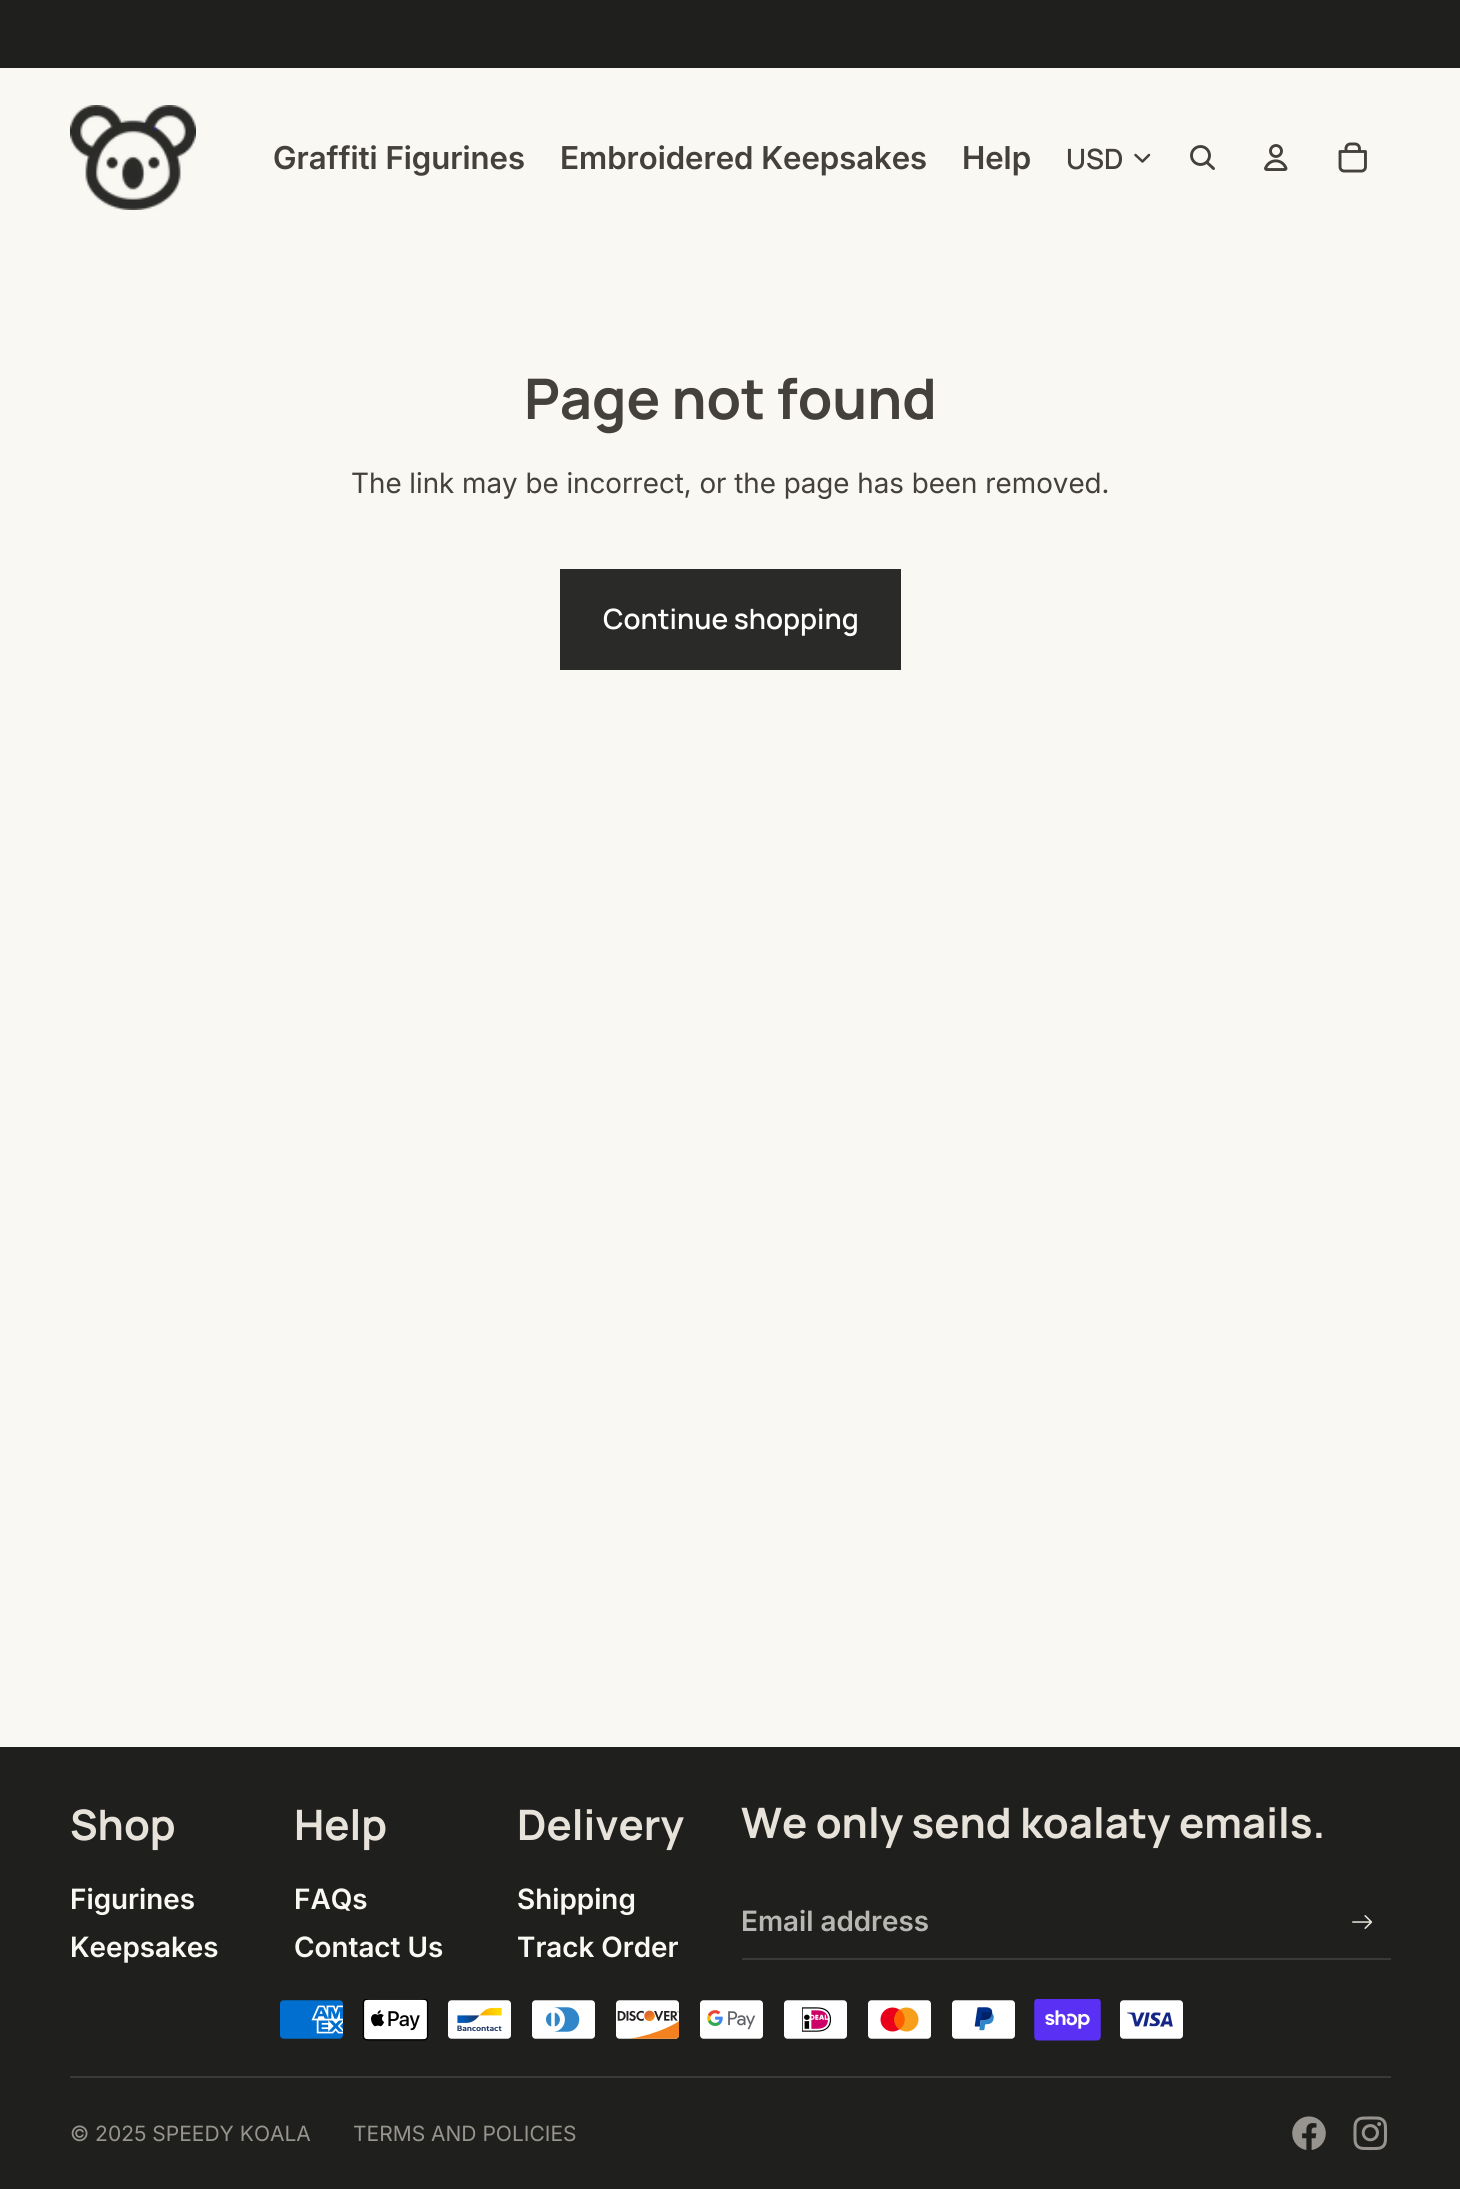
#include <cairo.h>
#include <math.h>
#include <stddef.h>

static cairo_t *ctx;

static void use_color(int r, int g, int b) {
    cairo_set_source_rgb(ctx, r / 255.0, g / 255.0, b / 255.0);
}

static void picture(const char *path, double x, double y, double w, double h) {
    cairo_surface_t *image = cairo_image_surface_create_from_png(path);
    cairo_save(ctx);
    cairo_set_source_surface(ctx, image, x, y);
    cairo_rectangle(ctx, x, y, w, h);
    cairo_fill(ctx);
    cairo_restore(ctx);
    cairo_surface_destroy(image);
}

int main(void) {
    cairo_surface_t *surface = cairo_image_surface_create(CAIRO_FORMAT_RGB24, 1460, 2189);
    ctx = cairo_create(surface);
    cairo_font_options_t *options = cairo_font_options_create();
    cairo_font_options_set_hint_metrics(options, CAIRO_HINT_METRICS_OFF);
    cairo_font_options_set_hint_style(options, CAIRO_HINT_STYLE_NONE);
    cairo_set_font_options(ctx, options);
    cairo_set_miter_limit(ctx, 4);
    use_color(31, 31, 29);
    cairo_paint(ctx);
    use_color(250, 248, 243);
    cairo_rectangle(ctx, 0, 68, 1460, 1679);
    cairo_fill(ctx);
    picture("img1.png", 70, 105, 126, 105);
    cairo_select_font_face(ctx, "Inter SemiBold", CAIRO_FONT_SLANT_NORMAL, CAIRO_FONT_WEIGHT_NORMAL);
    cairo_set_font_size(ctx, 31.5);
    use_color(68, 64, 60);
    cairo_move_to(ctx, 273, 169);
    cairo_show_text(ctx, "Graffiti Figurines");
    cairo_move_to(ctx, 560, 169);
    cairo_show_text(ctx, "Embroidered Keepsakes");
    cairo_move_to(ctx, 962, 169);
    cairo_show_text(ctx, "Help");
    cairo_select_font_face(ctx, "Manrope SemiBold", CAIRO_FONT_SLANT_NORMAL, CAIRO_FONT_WEIGHT_NORMAL);
    cairo_set_font_size(ctx, 28);
    cairo_move_to(ctx, 1066, 169);
    cairo_show_text(ctx, "USD");
    cairo_new_path(ctx);
    cairo_move_to(ctx, 1149, 155);
    cairo_line_to(ctx, 1142.5, 161.5);
    cairo_line_to(ctx, 1135.5, 155);
    cairo_set_line_width(ctx, 2.5);
    cairo_set_line_cap(ctx, CAIRO_LINE_CAP_ROUND);
    cairo_set_line_join(ctx, CAIRO_LINE_JOIN_ROUND);
    cairo_stroke(ctx);
    cairo_arc(ctx, 1200.5, 155.5, 9, 0, 2 * M_PI);
    cairo_set_line_width(ctx, 2.9);
    cairo_set_line_cap(ctx, CAIRO_LINE_CAP_BUTT);
    cairo_set_line_join(ctx, CAIRO_LINE_JOIN_MITER);
    cairo_stroke(ctx);
    cairo_new_path(ctx);
    cairo_move_to(ctx, 1207, 162.5);
    cairo_line_to(ctx, 1213.5, 168.5);
    cairo_set_line_cap(ctx, CAIRO_LINE_CAP_ROUND);
    cairo_set_line_join(ctx, CAIRO_LINE_JOIN_ROUND);
    cairo_stroke(ctx);
    picture("img2.png", 1264, 144, 24, 27);
    picture("img3.png", 1338, 142, 29, 31);
    cairo_select_font_face(ctx, "Manrope", CAIRO_FONT_SLANT_NORMAL, CAIRO_FONT_WEIGHT_BOLD);
    cairo_set_font_size(ctx, 56);
    cairo_move_to(ctx, 524, 419);
    cairo_show_text(ctx, "Page not found");
    cairo_select_font_face(ctx, "Inter", CAIRO_FONT_SLANT_NORMAL, CAIRO_FONT_WEIGHT_NORMAL);
    cairo_set_font_size(ctx, 28);
    cairo_move_to(ctx, 351, 493);
    cairo_show_text(ctx, "The link may be incorrect, or the page has been removed.");
    use_color(42, 42, 40);
    cairo_rectangle(ctx, 560, 569, 341, 101);
    cairo_fill(ctx);
    cairo_select_font_face(ctx, "Manrope SemiBold", CAIRO_FONT_SLANT_NORMAL, CAIRO_FONT_WEIGHT_NORMAL);
    use_color(255, 255, 255);
    cairo_move_to(ctx, 603, 629);
    cairo_show_text(ctx, "Continue shopping");
    cairo_select_font_face(ctx, "Manrope", CAIRO_FONT_SLANT_NORMAL, CAIRO_FONT_WEIGHT_BOLD);
    cairo_set_font_size(ctx, 42);
    use_color(231, 226, 218);
    cairo_move_to(ctx, 70, 1840);
    cairo_show_text(ctx, "Shop");
    cairo_select_font_face(ctx, "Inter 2 SemiBold", CAIRO_FONT_SLANT_NORMAL, CAIRO_FONT_WEIGHT_NORMAL);
    cairo_set_font_size(ctx, 28);
    use_color(250, 248, 243);
    cairo_move_to(ctx, 70, 1909);
    cairo_show_text(ctx, "Figurines");
    cairo_move_to(ctx, 70, 1957);
    cairo_show_text(ctx, "Keepsakes");
    cairo_select_font_face(ctx, "Manrope", CAIRO_FONT_SLANT_NORMAL, CAIRO_FONT_WEIGHT_BOLD);
    cairo_set_font_size(ctx, 42);
    use_color(231, 226, 218);
    cairo_move_to(ctx, 294, 1840);
    cairo_show_text(ctx, "Help");
    cairo_select_font_face(ctx, "Inter 2 SemiBold", CAIRO_FONT_SLANT_NORMAL, CAIRO_FONT_WEIGHT_NORMAL);
    cairo_set_font_size(ctx, 28);
    use_color(250, 248, 243);
    cairo_move_to(ctx, 294, 1909);
    cairo_show_text(ctx, "FAQs");
    cairo_move_to(ctx, 294, 1957);
    cairo_show_text(ctx, "Contact Us");
    cairo_select_font_face(ctx, "Manrope", CAIRO_FONT_SLANT_NORMAL, CAIRO_FONT_WEIGHT_BOLD);
    cairo_set_font_size(ctx, 42);
    use_color(231, 226, 218);
    cairo_move_to(ctx, 517, 1840);
    cairo_show_text(ctx, "Delivery");
    cairo_select_font_face(ctx, "Inter 2 SemiBold", CAIRO_FONT_SLANT_NORMAL, CAIRO_FONT_WEIGHT_NORMAL);
    cairo_set_font_size(ctx, 28);
    use_color(250, 248, 243);
    cairo_move_to(ctx, 517, 1909);
    cairo_show_text(ctx, "Shipping");
    cairo_move_to(ctx, 517, 1957);
    cairo_show_text(ctx, "Track Order");
    cairo_select_font_face(ctx, "Manrope", CAIRO_FONT_SLANT_NORMAL, CAIRO_FONT_WEIGHT_BOLD);
    cairo_set_font_size(ctx, 42);
    use_color(231, 226, 218);
    cairo_move_to(ctx, 741, 1838);
    cairo_show_text(ctx, "We only send koalaty emails.");
    use_color(58, 58, 54);
    cairo_rectangle(ctx, 742, 1958, 649, 2);
    cairo_fill(ctx);
    cairo_select_font_face(ctx, "Inter 2 SemiBold", CAIRO_FONT_SLANT_NORMAL, CAIRO_FONT_WEIGHT_NORMAL);
    cairo_set_font_size(ctx, 28);
    use_color(184, 183, 179);
    cairo_move_to(ctx, 741, 1931);
    cairo_show_text(ctx, "Email address");
    picture("img4.png", 1352, 1915, 21, 14);
    picture("img5.png", 280, 2000, 63, 39);
    picture("img6.png", 362, 1999, 67, 42);
    picture("img7.png", 448, 2000, 63, 39);
    picture("img8.png", 532, 2000, 63, 39);
    picture("img9.png", 616, 2000, 64, 39);
    picture("img10.png", 700, 2000, 63, 39);
    picture("img11.png", 784, 2000, 63, 39);
    picture("img12.png", 868, 2000, 63, 39);
    picture("img13.png", 952, 2000, 63, 39);
    picture("img14.png", 1034, 1999, 67, 42);
    picture("img15.png", 1120, 2000, 63, 39);
    use_color(58, 58, 54);
    cairo_rectangle(ctx, 70, 2076, 1321, 2);
    cairo_fill(ctx);
    cairo_select_font_face(ctx, "Inter 2", CAIRO_FONT_SLANT_NORMAL, CAIRO_FONT_WEIGHT_NORMAL);
    cairo_set_font_size(ctx, 21);
    use_color(151, 148, 142);
    cairo_move_to(ctx, 70, 2141);
    cairo_show_text(ctx, "© 2025 SPEEDY KOALA");
    cairo_move_to(ctx, 353, 2141);
    cairo_show_text(ctx, "TERMS AND POLICIES");
    picture("img16.png", 1292, 2116, 34, 34);
    picture("img17.png", 1353, 2116, 35, 35);
    cairo_surface_write_to_png(surface, "result.png");
    cairo_font_options_destroy(options);
    cairo_destroy(ctx);
    cairo_surface_destroy(surface);
    return 0;
}
